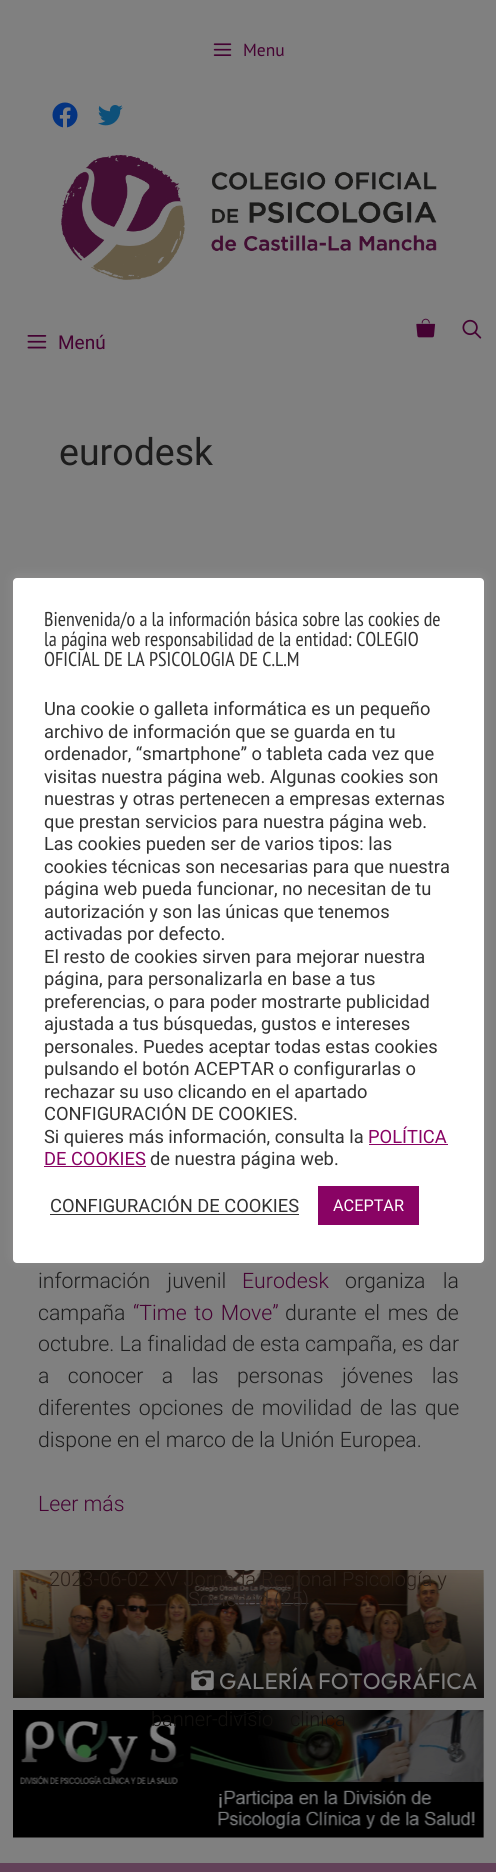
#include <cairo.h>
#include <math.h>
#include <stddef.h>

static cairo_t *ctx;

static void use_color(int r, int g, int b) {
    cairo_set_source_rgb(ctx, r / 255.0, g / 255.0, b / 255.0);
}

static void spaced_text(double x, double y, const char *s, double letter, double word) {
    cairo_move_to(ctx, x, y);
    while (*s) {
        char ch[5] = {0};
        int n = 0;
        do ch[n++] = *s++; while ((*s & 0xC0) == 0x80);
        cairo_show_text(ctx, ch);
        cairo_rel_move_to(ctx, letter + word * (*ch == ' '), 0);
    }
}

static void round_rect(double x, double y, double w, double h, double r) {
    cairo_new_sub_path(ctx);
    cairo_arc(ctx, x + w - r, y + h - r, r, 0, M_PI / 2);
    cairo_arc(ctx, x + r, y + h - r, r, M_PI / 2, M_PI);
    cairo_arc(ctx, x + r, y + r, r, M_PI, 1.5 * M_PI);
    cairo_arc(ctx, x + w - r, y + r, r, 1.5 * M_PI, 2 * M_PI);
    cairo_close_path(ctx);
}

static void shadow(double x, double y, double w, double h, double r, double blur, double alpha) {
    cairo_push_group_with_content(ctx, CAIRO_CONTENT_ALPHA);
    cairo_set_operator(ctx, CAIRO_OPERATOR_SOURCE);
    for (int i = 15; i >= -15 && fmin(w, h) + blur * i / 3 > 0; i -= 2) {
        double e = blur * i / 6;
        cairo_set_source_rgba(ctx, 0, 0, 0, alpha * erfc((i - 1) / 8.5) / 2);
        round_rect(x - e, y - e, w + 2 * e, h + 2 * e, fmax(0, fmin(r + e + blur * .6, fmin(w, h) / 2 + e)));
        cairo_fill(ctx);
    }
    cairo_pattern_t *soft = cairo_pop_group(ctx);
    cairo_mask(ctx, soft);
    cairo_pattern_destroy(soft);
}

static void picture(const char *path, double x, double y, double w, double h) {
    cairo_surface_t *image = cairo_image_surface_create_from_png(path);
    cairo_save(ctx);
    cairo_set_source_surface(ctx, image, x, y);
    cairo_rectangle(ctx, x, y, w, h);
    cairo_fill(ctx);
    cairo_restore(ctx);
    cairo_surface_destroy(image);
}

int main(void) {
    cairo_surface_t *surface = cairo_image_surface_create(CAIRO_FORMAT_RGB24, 496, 1872);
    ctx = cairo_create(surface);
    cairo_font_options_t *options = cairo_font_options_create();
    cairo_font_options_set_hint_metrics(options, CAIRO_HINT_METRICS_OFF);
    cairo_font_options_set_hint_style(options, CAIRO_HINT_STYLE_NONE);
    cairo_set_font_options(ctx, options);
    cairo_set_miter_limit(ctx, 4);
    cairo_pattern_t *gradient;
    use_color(128, 128, 128);
    cairo_paint(ctx);
    picture("img1.png", 213, 43, 19, 13);
    cairo_select_font_face(ctx, "PT Sans", CAIRO_FONT_SLANT_NORMAL, CAIRO_FONT_WEIGHT_NORMAL);
    cairo_set_font_size(ctx, 17.5);
    use_color(69, 2, 50);
    cairo_move_to(ctx, 243, 56);
    cairo_show_text(ctx, "Menu");
    picture("img2.png", 52, 102, 26, 26);
    picture("img3.png", 98, 105, 25, 21);
    picture("img4.png", 61, 155, 376, 125);
    picture("img5.png", 416, 318, 20, 20);
    picture("img6.png", 462, 319, 20, 20);
    picture("img7.png", 27, 335, 20, 14);
    cairo_select_font_face(ctx, "Roboto", CAIRO_FONT_SLANT_NORMAL, CAIRO_FONT_WEIGHT_NORMAL);
    cairo_set_font_size(ctx, 19);
    cairo_move_to(ctx, 58, 349);
    cairo_show_text(ctx, "Menú");
    cairo_set_font_size(ctx, 37.5);
    use_color(29, 29, 29);
    cairo_move_to(ctx, 59, 465);
    cairo_show_text(ctx, "eurodesk");
    cairo_select_font_face(ctx, "Roboto Light", CAIRO_FONT_SLANT_NORMAL, CAIRO_FONT_WEIGHT_NORMAL);
    cairo_set_font_size(ctx, 21.25);
    spaced_text(38, 1288, "información juvenil", 0, 12);
    use_color(69, 2, 50);
    cairo_move_to(ctx, 242, 1288);
    cairo_show_text(ctx, "Eurodesk");
    use_color(29, 29, 29);
    spaced_text(345, 1288, "organiza la", 0, 12);
    cairo_move_to(ctx, 38, 1320);
    cairo_show_text(ctx, "campaña");
    use_color(69, 2, 50);
    spaced_text(133, 1320, "“Time to Move”", 0, 2.5);
    use_color(29, 29, 29);
    spaced_text(285, 1320, "durante el mes de", 0, 2.5);
    cairo_move_to(ctx, 38, 1351);
    cairo_show_text(ctx, "octubre. La finalidad de esta campaña, es dar");
    spaced_text(38, 1383, "a conocer a las personas jóvenes las", 0, 13.25);
    spaced_text(38, 1415, "diferentes opciones de movilidad de las que", 0, 2.5);
    cairo_move_to(ctx, 38, 1447);
    cairo_show_text(ctx, "dispone en el marco de la Unión Europea.");
    use_color(69, 2, 50);
    cairo_move_to(ctx, 38, 1511);
    cairo_show_text(ctx, "Leer más");
    picture("img8.png", 13, 1570, 471, 128);
    gradient = cairo_pattern_create_linear(248, 1570, 248, 1698);
    cairo_pattern_add_color_stop_rgba(gradient, 0, 0, 0, 0, 0);
    cairo_pattern_add_color_stop_rgba(gradient, 1, 0, 0, 0, 0.8);
    cairo_set_source(ctx, gradient);
    cairo_pattern_destroy(gradient);
    cairo_rectangle(ctx, 13, 1573, 471, 125);
    cairo_fill(ctx);
    cairo_set_font_size(ctx, 20);
    use_color(42, 31, 24);
    cairo_move_to(ctx, 49, 1586);
    cairo_show_text(ctx, "2023-06-02 XV Jornada Regional Psicología y");
    use_color(46, 36, 31);
    cairo_move_to(ctx, 188, 1606);
    cairo_show_text(ctx, "Sociedad (25)");
    picture("img9.png", 191, 1670, 23, 21);
    cairo_select_font_face(ctx, "Outfit", CAIRO_FONT_SLANT_NORMAL, CAIRO_FONT_WEIGHT_NORMAL);
    cairo_set_font_size(ctx, 22.5);
    use_color(128, 128, 128);
    cairo_move_to(ctx, 219, 1689);
    cairo_show_text(ctx, "GALERÍA FOTOGRÁFICA");
    picture("img10.png", 13, 1710, 471, 128);
    cairo_select_font_face(ctx, "Roboto Light", CAIRO_FONT_SLANT_NORMAL, CAIRO_FONT_WEIGHT_NORMAL);
    cairo_set_font_size(ctx, 20);
    use_color(18, 16, 14);
    cairo_move_to(ctx, 151, 1726);
    cairo_show_text(ctx, "banner-divisio");
    cairo_move_to(ctx, 290, 1726);
    cairo_show_text(ctx, "clinica");
    use_color(172, 171, 171);
    shadow(13, 576, 471, 685, 4, 6, 0.3);
    use_color(255, 255, 255);
    round_rect(13, 578, 471, 685, 4);
    cairo_fill(ctx);
    cairo_select_font_face(ctx, "PT Sans Narrow", CAIRO_FONT_SLANT_NORMAL, CAIRO_FONT_WEIGHT_NORMAL);
    use_color(51, 51, 51);
    cairo_move_to(ctx, 44, 626);
    cairo_show_text(ctx, "Bienvenida/o a la información básica sobre las cookies de");
    cairo_move_to(ctx, 44, 646);
    cairo_show_text(ctx, "la página web responsabilidad de la entidad: COLEGIO");
    cairo_move_to(ctx, 44, 666);
    cairo_show_text(ctx, "OFICIAL DE LA PSICOLOGIA DE C.L.M");
    cairo_select_font_face(ctx, "Roboto", CAIRO_FONT_SLANT_NORMAL, CAIRO_FONT_WEIGHT_NORMAL);
    cairo_set_font_size(ctx, 18.3);
    cairo_move_to(ctx, 44, 715);
    cairo_show_text(ctx, "Una cookie o galleta informática es un pequeño");
    cairo_move_to(ctx, 44, 738);
    cairo_show_text(ctx, "archivo de información que se guarda en tu");
    cairo_move_to(ctx, 44, 760);
    cairo_show_text(ctx, "ordenador, “smartphone” o tableta cada vez que");
    cairo_move_to(ctx, 44, 783);
    cairo_show_text(ctx, "visitas nuestra página web. Algunas cookies son");
    cairo_move_to(ctx, 44, 805);
    cairo_show_text(ctx, "nuestras y otras pertenecen a empresas externas");
    cairo_move_to(ctx, 44, 828);
    cairo_show_text(ctx, "que prestan servicios para nuestra página web.");
    cairo_move_to(ctx, 44, 850);
    cairo_show_text(ctx, "Las cookies pueden ser de varios tipos: las");
    cairo_move_to(ctx, 44, 873);
    cairo_show_text(ctx, "cookies técnicas son necesarias para que nuestra");
    cairo_move_to(ctx, 44, 895);
    cairo_show_text(ctx, "página web pueda funcionar, no necesitan de tu");
    cairo_move_to(ctx, 44, 918);
    cairo_show_text(ctx, "autorización y son las únicas que tenemos");
    cairo_move_to(ctx, 44, 940);
    cairo_show_text(ctx, "activadas por defecto.");
    cairo_move_to(ctx, 44, 963);
    cairo_show_text(ctx, "El resto de cookies sirven para mejorar nuestra");
    cairo_move_to(ctx, 44, 985);
    cairo_show_text(ctx, "página, para personalizarla en base a tus");
    cairo_move_to(ctx, 44, 1008);
    cairo_show_text(ctx, "preferencias, o para poder mostrarte publicidad");
    cairo_move_to(ctx, 44, 1030);
    cairo_show_text(ctx, "ajustada a tus búsquedas, gustos e intereses");
    cairo_move_to(ctx, 44, 1053);
    cairo_show_text(ctx, "personales. Puedes aceptar todas estas cookies");
    cairo_move_to(ctx, 44, 1075);
    cairo_show_text(ctx, "pulsando el botón ACEPTAR o configurarlas o");
    cairo_move_to(ctx, 44, 1098);
    cairo_show_text(ctx, "rechazar su uso clicando en el apartado");
    cairo_move_to(ctx, 44, 1120);
    cairo_show_text(ctx, "CONFIGURACIÓN DE COOKIES.");
    cairo_move_to(ctx, 44, 1143);
    cairo_show_text(ctx, "Si quieres más información, consulta la");
    use_color(137, 3, 100);
    cairo_move_to(ctx, 368, 1143);
    cairo_show_text(ctx, "POLÍTICA");
    cairo_rectangle(ctx, 369, 1144, 79, 1);
    cairo_fill(ctx);
    cairo_move_to(ctx, 44, 1165);
    cairo_show_text(ctx, "DE COOKIES");
    cairo_rectangle(ctx, 44, 1166, 102, 1);
    cairo_fill(ctx);
    use_color(51, 51, 51);
    cairo_move_to(ctx, 150, 1165);
    cairo_show_text(ctx, "de nuestra página web.");
    cairo_move_to(ctx, 50, 1212);
    cairo_show_text(ctx, "CONFIGURACIÓN DE COOKIES");
    cairo_rectangle(ctx, 50, 1214, 249, 1);
    cairo_fill(ctx);
    use_color(137, 3, 100);
    cairo_rectangle(ctx, 318, 1186, 101, 39);
    cairo_fill(ctx);
    cairo_set_font_size(ctx, 16.25);
    use_color(255, 255, 255);
    cairo_move_to(ctx, 333, 1211);
    cairo_show_text(ctx, "ACEPTAR");
    use_color(98, 65, 89);
    cairo_rectangle(ctx, 0, 1863, 496, 9);
    cairo_fill(ctx);
    cairo_surface_write_to_png(surface, "result.png");
    cairo_font_options_destroy(options);
    cairo_destroy(ctx);
    cairo_surface_destroy(surface);
    return 0;
}
